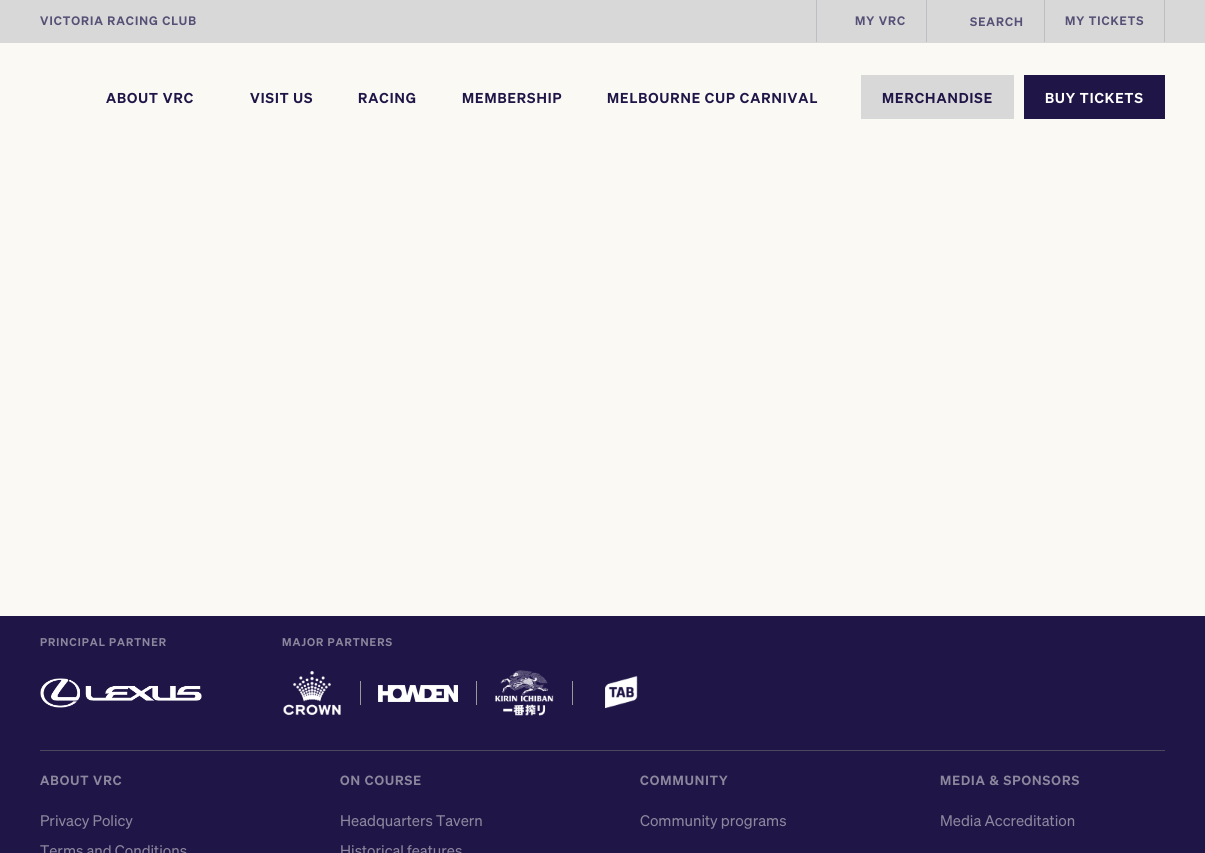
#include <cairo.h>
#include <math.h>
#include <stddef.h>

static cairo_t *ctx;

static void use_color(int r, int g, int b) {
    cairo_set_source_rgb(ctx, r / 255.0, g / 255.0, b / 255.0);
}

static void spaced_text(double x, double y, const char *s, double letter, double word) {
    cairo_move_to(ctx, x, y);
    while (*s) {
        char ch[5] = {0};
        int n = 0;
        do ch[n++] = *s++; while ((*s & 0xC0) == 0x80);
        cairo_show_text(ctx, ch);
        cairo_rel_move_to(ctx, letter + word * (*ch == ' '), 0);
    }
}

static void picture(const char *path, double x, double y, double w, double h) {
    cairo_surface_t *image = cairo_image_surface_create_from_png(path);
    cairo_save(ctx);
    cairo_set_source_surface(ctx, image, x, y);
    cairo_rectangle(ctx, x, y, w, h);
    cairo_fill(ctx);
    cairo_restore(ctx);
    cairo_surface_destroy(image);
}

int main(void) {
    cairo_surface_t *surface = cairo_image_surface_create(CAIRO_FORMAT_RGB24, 1205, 853);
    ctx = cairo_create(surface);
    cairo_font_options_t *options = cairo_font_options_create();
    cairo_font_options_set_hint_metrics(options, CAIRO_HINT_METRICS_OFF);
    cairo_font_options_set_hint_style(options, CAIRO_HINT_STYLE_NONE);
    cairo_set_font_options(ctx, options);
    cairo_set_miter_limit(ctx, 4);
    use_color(250, 249, 243);
    cairo_paint(ctx);
    use_color(216, 216, 216);
    cairo_rectangle(ctx, 0, 0, 1205, 43);
    cairo_fill(ctx);
    cairo_select_font_face(ctx, "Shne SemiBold", CAIRO_FONT_SLANT_NORMAL, CAIRO_FONT_WEIGHT_NORMAL);
    cairo_set_font_size(ctx, 12);
    use_color(87, 80, 118);
    spaced_text(40, 25, "VICTORIA RACING CLUB", 1, 0);
    use_color(190, 189, 196);
    cairo_rectangle(ctx, 816, 0, 1, 42);
    cairo_fill(ctx);
    use_color(87, 80, 118);
    spaced_text(855, 25, "MY VRC", 1, 0);
    use_color(190, 189, 196);
    cairo_rectangle(ctx, 926, 0, 1, 42);
    cairo_fill(ctx);
    use_color(87, 80, 118);
    spaced_text(970, 26, "SEARCH", 1, 0);
    use_color(190, 189, 196);
    cairo_rectangle(ctx, 1164, 0, 1, 42);
    cairo_fill(ctx);
    cairo_rectangle(ctx, 1044, 0, 1, 42);
    cairo_fill(ctx);
    use_color(87, 80, 118);
    spaced_text(1065, 25, "MY TICKETS", 1, 0);
    cairo_set_font_size(ctx, 14);
    use_color(32, 21, 71);
    spaced_text(106, 103, "ABOUT VRC", 1, 0);
    spaced_text(250, 103, "VISIT US", 1, 0);
    spaced_text(358, 103, "RACING", 1, 0);
    spaced_text(462, 103, "MEMBERSHIP", 1, 0);
    spaced_text(607, 103, "MELBOURNE CUP CARNIVAL", 1, 0);
    use_color(216, 216, 216);
    cairo_rectangle(ctx, 861, 75, 153, 44);
    cairo_fill(ctx);
    use_color(32, 21, 71);
    spaced_text(882, 103, "MERCHANDISE", 1, 0);
    cairo_rectangle(ctx, 1024, 75, 141, 44);
    cairo_fill(ctx);
    use_color(255, 255, 255);
    spaced_text(1045, 103, "BUY TICKETS", 1, 0);
    use_color(32, 21, 71);
    cairo_rectangle(ctx, 0, 616, 1205, 237);
    cairo_fill(ctx);
    use_color(76, 70, 95);
    cairo_rectangle(ctx, 40, 750, 1125, 1);
    cairo_fill(ctx);
    cairo_set_font_size(ctx, 11);
    use_color(140, 135, 157);
    spaced_text(40, 646, "PRINCIPAL PARTNER", 1, 0);
    picture("img1.png", 40, 678, 162, 30);
    spaced_text(282, 646, "MAJOR PARTNERS", 1, 0);
    picture("img2.png", 283, 670, 58, 46);
    use_color(153, 153, 153);
    cairo_rectangle(ctx, 360, 681, 1, 24);
    cairo_fill(ctx);
    picture("img3.png", 378, 685, 80, 17);
    cairo_rectangle(ctx, 476, 681, 1, 24);
    cairo_fill(ctx);
    picture("img4.png", 495, 670, 59, 46);
    cairo_rectangle(ctx, 572, 681, 1, 24);
    cairo_fill(ctx);
    picture("img5.png", 605, 675, 33, 34);
    cairo_set_font_size(ctx, 13);
    use_color(140, 135, 157);
    spaced_text(40, 785, "ABOUT VRC", 1, 0);
    cairo_select_font_face(ctx, "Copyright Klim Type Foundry", CAIRO_FONT_SLANT_NORMAL, CAIRO_FONT_WEIGHT_NORMAL);
    cairo_set_font_size(ctx, 15);
    cairo_move_to(ctx, 40, 826);
    cairo_show_text(ctx, "Privacy Policy");
    cairo_move_to(ctx, 40, 856);
    cairo_show_text(ctx, "Terms and Conditions");
    cairo_select_font_face(ctx, "Shne SemiBold", CAIRO_FONT_SLANT_NORMAL, CAIRO_FONT_WEIGHT_NORMAL);
    cairo_set_font_size(ctx, 13);
    spaced_text(340, 785, "ON COURSE", 1, 0);
    cairo_select_font_face(ctx, "Copyright Klim Type Foundry", CAIRO_FONT_SLANT_NORMAL, CAIRO_FONT_WEIGHT_NORMAL);
    cairo_set_font_size(ctx, 15);
    cairo_move_to(ctx, 340, 826);
    cairo_show_text(ctx, "Headquarters Tavern");
    cairo_move_to(ctx, 340, 856);
    cairo_show_text(ctx, "Historical features");
    cairo_select_font_face(ctx, "Shne SemiBold", CAIRO_FONT_SLANT_NORMAL, CAIRO_FONT_WEIGHT_NORMAL);
    cairo_set_font_size(ctx, 13);
    spaced_text(640, 785, "COMMUNITY", 1, 0);
    cairo_select_font_face(ctx, "Copyright Klim Type Foundry", CAIRO_FONT_SLANT_NORMAL, CAIRO_FONT_WEIGHT_NORMAL);
    cairo_set_font_size(ctx, 15);
    cairo_move_to(ctx, 640, 826);
    cairo_show_text(ctx, "Community programs");
    cairo_select_font_face(ctx, "Shne SemiBold", CAIRO_FONT_SLANT_NORMAL, CAIRO_FONT_WEIGHT_NORMAL);
    cairo_set_font_size(ctx, 13);
    spaced_text(940, 785, "MEDIA & SPONSORS", 1, 0);
    cairo_select_font_face(ctx, "Copyright Klim Type Foundry", CAIRO_FONT_SLANT_NORMAL, CAIRO_FONT_WEIGHT_NORMAL);
    cairo_set_font_size(ctx, 15);
    cairo_move_to(ctx, 940, 826);
    cairo_show_text(ctx, "Media Accreditation");
    cairo_surface_write_to_png(surface, "result.png");
    cairo_font_options_destroy(options);
    cairo_destroy(ctx);
    cairo_surface_destroy(surface);
    return 0;
}
